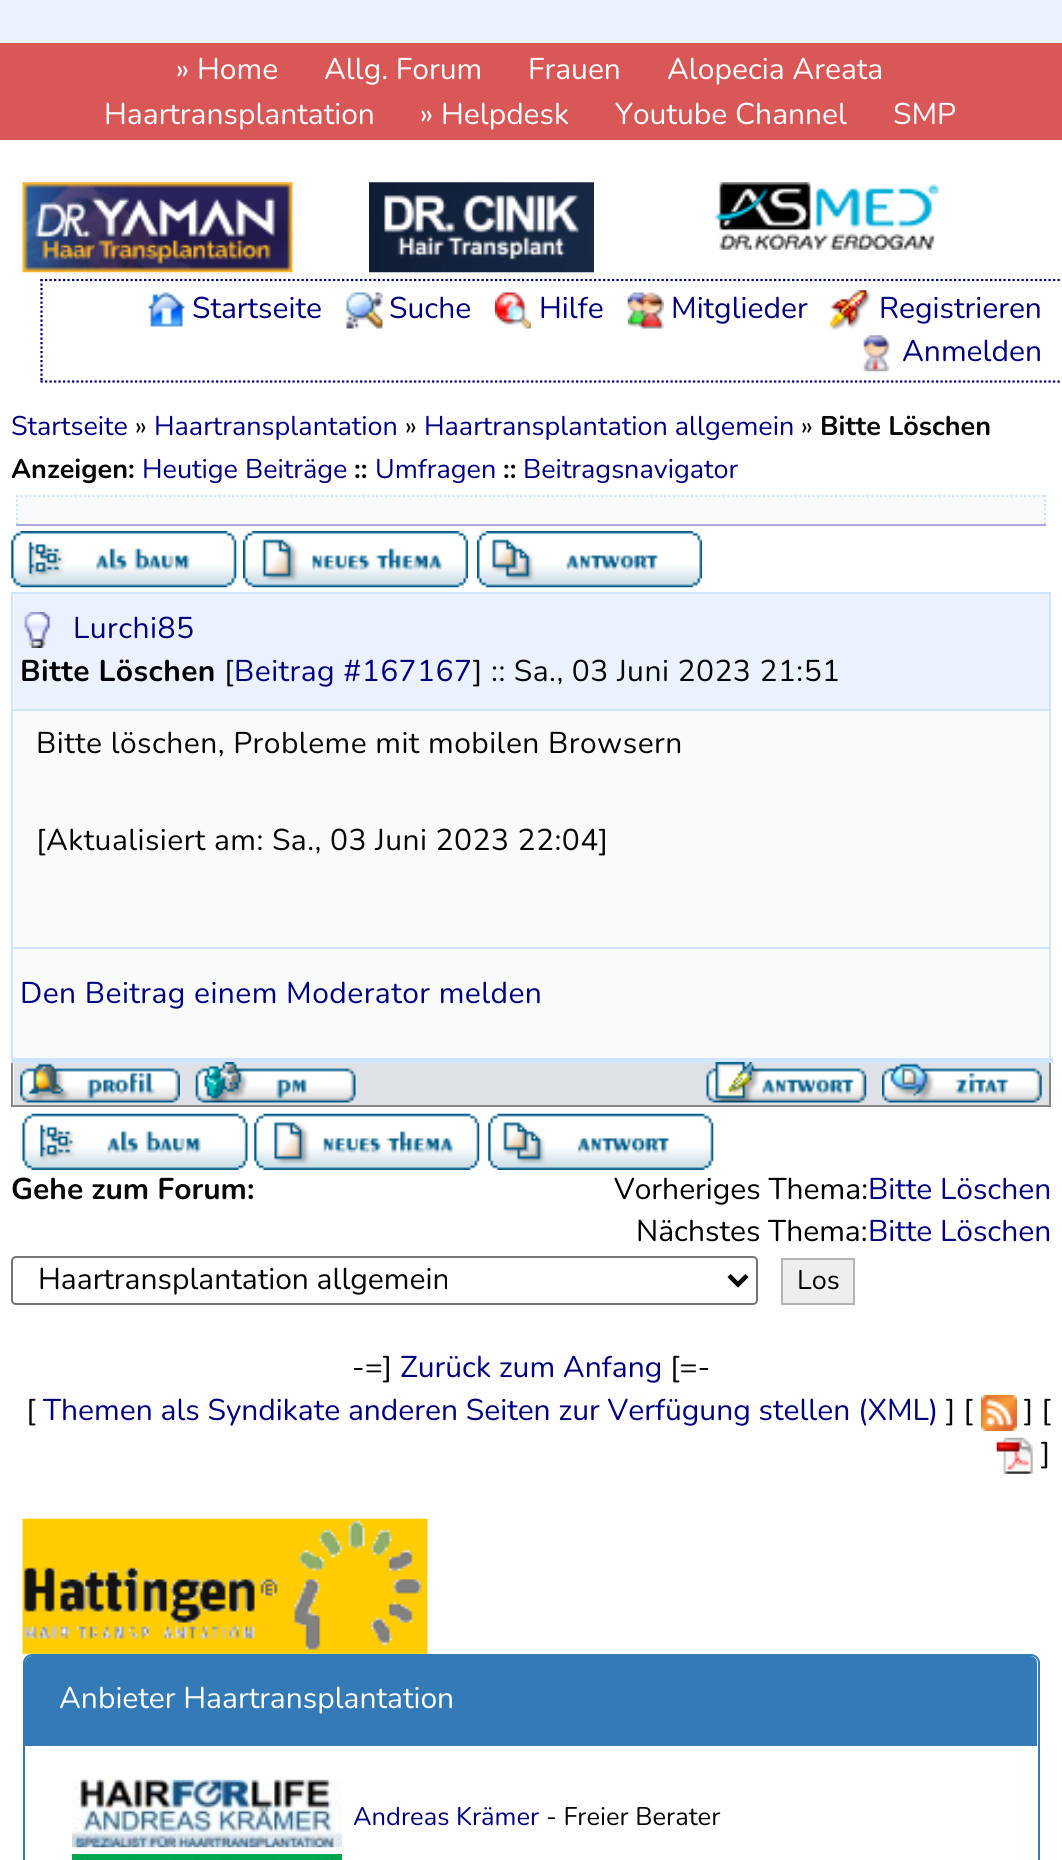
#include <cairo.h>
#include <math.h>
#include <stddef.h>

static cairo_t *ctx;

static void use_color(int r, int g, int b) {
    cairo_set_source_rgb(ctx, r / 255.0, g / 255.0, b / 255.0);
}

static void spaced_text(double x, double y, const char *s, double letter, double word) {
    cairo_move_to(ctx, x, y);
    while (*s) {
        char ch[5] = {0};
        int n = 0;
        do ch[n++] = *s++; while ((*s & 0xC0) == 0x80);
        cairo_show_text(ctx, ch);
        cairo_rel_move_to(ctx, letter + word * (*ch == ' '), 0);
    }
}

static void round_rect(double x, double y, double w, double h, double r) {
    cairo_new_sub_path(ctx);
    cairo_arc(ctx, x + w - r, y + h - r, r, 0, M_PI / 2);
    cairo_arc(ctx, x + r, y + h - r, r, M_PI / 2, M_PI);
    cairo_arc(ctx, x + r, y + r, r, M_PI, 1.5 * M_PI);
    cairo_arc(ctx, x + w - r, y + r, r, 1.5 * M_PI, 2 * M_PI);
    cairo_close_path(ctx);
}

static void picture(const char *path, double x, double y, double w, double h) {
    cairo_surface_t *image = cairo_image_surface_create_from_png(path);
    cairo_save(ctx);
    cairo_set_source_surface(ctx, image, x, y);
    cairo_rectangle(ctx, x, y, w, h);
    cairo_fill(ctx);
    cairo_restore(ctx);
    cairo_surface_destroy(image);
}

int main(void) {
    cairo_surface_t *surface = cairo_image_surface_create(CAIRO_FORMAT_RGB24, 1062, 1860);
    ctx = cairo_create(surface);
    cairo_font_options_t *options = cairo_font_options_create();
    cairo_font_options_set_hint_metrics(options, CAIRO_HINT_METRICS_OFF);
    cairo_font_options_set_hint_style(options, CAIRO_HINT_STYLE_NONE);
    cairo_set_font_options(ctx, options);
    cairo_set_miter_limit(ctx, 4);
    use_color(255, 255, 255);
    cairo_paint(ctx);
    use_color(235, 241, 255);
    cairo_rectangle(ctx, 0, 0, 1062, 43);
    cairo_fill(ctx);
    use_color(217, 87, 87);
    cairo_rectangle(ctx, 0, 43, 1062, 97);
    cairo_fill(ctx);
    cairo_select_font_face(ctx, "Nunito ExtraLight", CAIRO_FONT_SLANT_NORMAL, CAIRO_FONT_WEIGHT_NORMAL);
    cairo_set_font_size(ctx, 30);
    use_color(255, 255, 255);
    cairo_move_to(ctx, 176, 79);
    cairo_show_text(ctx, "» Home");
    cairo_move_to(ctx, 324, 79);
    cairo_show_text(ctx, "Allg. Forum");
    cairo_move_to(ctx, 528, 79);
    cairo_show_text(ctx, "Frauen");
    cairo_move_to(ctx, 667, 79);
    cairo_show_text(ctx, "Alopecia Areata");
    cairo_move_to(ctx, 104, 124);
    cairo_show_text(ctx, "Haartransplantation");
    cairo_move_to(ctx, 420, 124);
    cairo_show_text(ctx, "» Helpdesk");
    cairo_move_to(ctx, 615, 124);
    cairo_show_text(ctx, "Youtube Channel");
    cairo_move_to(ctx, 893, 124);
    cairo_show_text(ctx, "SMP");
    picture("img1.png", 22, 182, 271, 91);
    picture("img2.png", 369, 182, 225, 91);
    picture("img3.png", 715, 182, 224, 68);
    cairo_new_path(ctx);
    cairo_move_to(ctx, 40.5, 280);
    cairo_line_to(ctx, 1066.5, 280);
    use_color(0, 0, 128);
    cairo_set_line_width(ctx, 2.2);
    cairo_set_dash(ctx, (double[]){2.25, 2.25}, 2, 0);
    cairo_stroke(ctx);
    cairo_new_path(ctx);
    cairo_move_to(ctx, 40.5, 381.5);
    cairo_line_to(ctx, 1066.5, 381.5);
    cairo_stroke(ctx);
    cairo_new_path(ctx);
    cairo_move_to(ctx, 41.5, 279);
    cairo_line_to(ctx, 41.5, 382.5);
    cairo_stroke(ctx);
    picture("img4.png", 148, 292, 37, 35);
    cairo_move_to(ctx, 192, 318);
    cairo_show_text(ctx, "Startseite");
    picture("img5.png", 346, 292, 37, 37);
    cairo_move_to(ctx, 389, 318);
    cairo_show_text(ctx, "Suche");
    picture("img6.png", 495, 292, 36, 37);
    cairo_move_to(ctx, 539, 318);
    cairo_show_text(ctx, "Hilfe");
    picture("img7.png", 627, 292, 37, 37);
    cairo_move_to(ctx, 671, 318);
    cairo_show_text(ctx, "Mitglieder");
    picture("img8.png", 830, 290, 41, 41);
    cairo_move_to(ctx, 879, 318);
    cairo_show_text(ctx, "Registrieren");
    picture("img9.png", 863, 335, 28, 37);
    cairo_move_to(ctx, 902, 361);
    cairo_show_text(ctx, "Anmelden");
    cairo_set_font_size(ctx, 27);
    cairo_move_to(ctx, 11, 435);
    cairo_show_text(ctx, "Startseite");
    use_color(8, 8, 8);
    cairo_move_to(ctx, 135, 435);
    cairo_show_text(ctx, "»");
    use_color(0, 0, 128);
    cairo_move_to(ctx, 154, 435);
    cairo_show_text(ctx, "Haartransplantation");
    use_color(8, 8, 8);
    cairo_move_to(ctx, 405, 435);
    cairo_show_text(ctx, "»");
    use_color(0, 0, 128);
    cairo_move_to(ctx, 424, 435);
    cairo_show_text(ctx, "Haartransplantation allgemein");
    use_color(8, 8, 8);
    cairo_move_to(ctx, 801, 435);
    cairo_show_text(ctx, "»");
    cairo_select_font_face(ctx, "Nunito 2 ExtraLight", CAIRO_FONT_SLANT_NORMAL, CAIRO_FONT_WEIGHT_NORMAL);
    cairo_move_to(ctx, 820, 435);
    cairo_show_text(ctx, "Bitte Löschen");
    use_color(0, 0, 0);
    cairo_move_to(ctx, 11, 478);
    cairo_show_text(ctx, "Anzeigen:");
    cairo_select_font_face(ctx, "Nunito ExtraLight", CAIRO_FONT_SLANT_NORMAL, CAIRO_FONT_WEIGHT_NORMAL);
    use_color(0, 0, 128);
    cairo_move_to(ctx, 142, 478);
    cairo_show_text(ctx, "Heutige Beiträge");
    cairo_select_font_face(ctx, "Nunito 2 ExtraLight", CAIRO_FONT_SLANT_NORMAL, CAIRO_FONT_WEIGHT_NORMAL);
    use_color(8, 8, 8);
    cairo_move_to(ctx, 354, 478);
    cairo_show_text(ctx, "::");
    cairo_select_font_face(ctx, "Nunito ExtraLight", CAIRO_FONT_SLANT_NORMAL, CAIRO_FONT_WEIGHT_NORMAL);
    use_color(0, 0, 128);
    cairo_move_to(ctx, 375, 478);
    cairo_show_text(ctx, "Umfragen");
    cairo_select_font_face(ctx, "Nunito 2 ExtraLight", CAIRO_FONT_SLANT_NORMAL, CAIRO_FONT_WEIGHT_NORMAL);
    use_color(8, 8, 8);
    cairo_move_to(ctx, 503, 478);
    cairo_show_text(ctx, "::");
    cairo_select_font_face(ctx, "Nunito ExtraLight", CAIRO_FONT_SLANT_NORMAL, CAIRO_FONT_WEIGHT_NORMAL);
    use_color(0, 0, 128);
    cairo_move_to(ctx, 523, 478);
    cairo_show_text(ctx, "Beitragsnavigator");
    use_color(249, 250, 250);
    cairo_rectangle(ctx, 16, 495, 1030, 32);
    cairo_fill(ctx);
    cairo_new_path(ctx);
    cairo_move_to(ctx, 16, 496);
    cairo_line_to(ctx, 1046, 496);
    use_color(207, 228, 254);
    cairo_stroke(ctx);
    cairo_new_path(ctx);
    cairo_move_to(ctx, 1045, 495);
    cairo_line_to(ctx, 1045, 526.5);
    cairo_stroke(ctx);
    use_color(170, 170, 221);
    cairo_rectangle(ctx, 16, 524, 1030, 2);
    cairo_fill(ctx);
    cairo_new_path(ctx);
    cairo_move_to(ctx, 17, 495);
    cairo_line_to(ctx, 17, 526.5);
    use_color(207, 228, 254);
    cairo_stroke(ctx);
    picture("img10.png", 11, 531, 226, 57);
    picture("img11.png", 243, 531, 225, 57);
    picture("img12.png", 477, 531, 225, 57);
    use_color(136, 136, 136);
    cairo_rectangle(ctx, 1049, 1063, 2, 44);
    cairo_fill(ctx);
    cairo_rectangle(ctx, 11, 1105, 1040, 2);
    cairo_fill(ctx);
    cairo_rectangle(ctx, 11, 1063, 2, 44);
    cairo_fill(ctx);
    use_color(235, 241, 255);
    cairo_rectangle(ctx, 14, 594, 1035, 115);
    cairo_fill(ctx);
    use_color(207, 228, 254);
    cairo_rectangle(ctx, 11, 592, 1040, 2);
    cairo_fill(ctx);
    cairo_rectangle(ctx, 11, 709, 1040, 2);
    cairo_fill(ctx);
    cairo_rectangle(ctx, 11, 947, 1040, 2);
    cairo_fill(ctx);
    cairo_rectangle(ctx, 1049, 947, 2, 113);
    cairo_fill(ctx);
    cairo_rectangle(ctx, 1049, 709, 2, 241);
    cairo_fill(ctx);
    cairo_rectangle(ctx, 1049, 592, 2, 119);
    cairo_fill(ctx);
    cairo_rectangle(ctx, 11, 947, 2, 113);
    cairo_fill(ctx);
    cairo_rectangle(ctx, 11, 709, 2, 241);
    cairo_fill(ctx);
    cairo_rectangle(ctx, 11, 592, 2, 119);
    cairo_fill(ctx);
    picture("img13.png", 24, 612, 27, 36);
    cairo_set_font_size(ctx, 30);
    use_color(0, 0, 128);
    spaced_text(73, 638, "Lurchi85", 0.45, 0);
    cairo_select_font_face(ctx, "Nunito 2 ExtraLight", CAIRO_FONT_SLANT_NORMAL, CAIRO_FONT_WEIGHT_NORMAL);
    use_color(0, 0, 0);
    spaced_text(20, 681, "Bitte Löschen", 0.45, 0);
    cairo_select_font_face(ctx, "Nunito ExtraLight", CAIRO_FONT_SLANT_NORMAL, CAIRO_FONT_WEIGHT_NORMAL);
    use_color(8, 8, 8);
    spaced_text(224, 681, "[", 0.45, 0);
    use_color(0, 0, 128);
    spaced_text(234, 681, "Beitrag #167167", 0.45, 0);
    use_color(8, 8, 8);
    spaced_text(473, 681, "] :: Sa., 03 Juni 2023 21:51", 0.45, 0);
    use_color(249, 250, 250);
    cairo_rectangle(ctx, 14, 711, 1035, 236);
    cairo_fill(ctx);
    use_color(8, 8, 8);
    spaced_text(36, 753, "Bitte löschen, Probleme mit mobilen Browsern", 0.45, 0);
    spaced_text(36, 850, "[Aktualisiert am: Sa., 03 Juni 2023 22:04]", 0.45, 0);
    use_color(249, 250, 250);
    cairo_rectangle(ctx, 14, 949, 1035, 109);
    cairo_fill(ctx);
    use_color(207, 228, 254);
    cairo_rectangle(ctx, 11, 1058, 1042, 5);
    cairo_fill(ctx);
    use_color(0, 0, 128);
    spaced_text(20, 1003, "Den Beitrag einem Moderator melden", 0.45, 0);
    use_color(222, 226, 230);
    cairo_rectangle(ctx, 14, 1063, 1035, 42);
    cairo_fill(ctx);
    picture("img14.png", 20, 1063, 160, 40);
    picture("img15.png", 195, 1062, 161, 41);
    picture("img16.png", 706, 1062, 161, 41);
    picture("img17.png", 882, 1063, 160, 40);
    picture("img18.png", 22, 1113, 226, 57);
    picture("img19.png", 254, 1113, 226, 57);
    picture("img20.png", 488, 1113, 226, 57);
    cairo_select_font_face(ctx, "Nunito 2 ExtraLight", CAIRO_FONT_SLANT_NORMAL, CAIRO_FONT_WEIGHT_NORMAL);
    use_color(8, 8, 8);
    cairo_move_to(ctx, 11, 1199);
    cairo_show_text(ctx, "Gehe zum Forum:");
    cairo_select_font_face(ctx, "Nunito ExtraLight", CAIRO_FONT_SLANT_NORMAL, CAIRO_FONT_WEIGHT_NORMAL);
    use_color(0, 0, 0);
    cairo_move_to(ctx, 614, 1199);
    cairo_show_text(ctx, "Vorheriges Thema:");
    use_color(0, 0, 128);
    cairo_move_to(ctx, 868, 1199);
    cairo_show_text(ctx, "Bitte Löschen");
    use_color(0, 0, 0);
    cairo_move_to(ctx, 636, 1241);
    cairo_show_text(ctx, "Nächstes Thema:");
    use_color(0, 0, 128);
    cairo_move_to(ctx, 868, 1241);
    cairo_show_text(ctx, "Bitte Löschen");
    round_rect(12, 1257, 745, 47, 4);
    use_color(118, 118, 118);
    cairo_set_line_width(ctx, 2);
    cairo_set_dash(ctx, NULL, 0, 0);
    cairo_stroke(ctx);
    cairo_new_path(ctx);
    cairo_move_to(ctx, 729, 1275.5);
    cairo_line_to(ctx, 738, 1284.5);
    cairo_line_to(ctx, 747, 1275.5);
    use_color(8, 8, 8);
    cairo_set_line_width(ctx, 4.5);
    cairo_stroke(ctx);
    cairo_move_to(ctx, 38, 1289);
    cairo_show_text(ctx, "Haartransplantation allgemein");
    use_color(238, 238, 238);
    cairo_rectangle(ctx, 782, 1259, 72, 45);
    cairo_fill_preserve(ctx);
    use_color(180, 178, 180);
    cairo_set_line_width(ctx, 2);
    cairo_stroke(ctx);
    cairo_set_font_size(ctx, 27);
    use_color(0, 0, 0);
    cairo_move_to(ctx, 797, 1289);
    cairo_show_text(ctx, "Los");
    cairo_set_font_size(ctx, 30);
    use_color(8, 8, 8);
    cairo_move_to(ctx, 352, 1377);
    cairo_show_text(ctx, "-=]");
    use_color(0, 0, 128);
    cairo_move_to(ctx, 400, 1377);
    cairo_show_text(ctx, "Zurück zum Anfang");
    use_color(8, 8, 8);
    cairo_move_to(ctx, 670, 1377);
    cairo_show_text(ctx, "[=-");
    cairo_move_to(ctx, 26, 1420);
    cairo_show_text(ctx, "[");
    use_color(0, 0, 128);
    cairo_move_to(ctx, 43, 1420);
    cairo_show_text(ctx, "Themen als Syndikate anderen Seiten zur Verfügung stellen (XML)");
    use_color(8, 8, 8);
    cairo_move_to(ctx, 946, 1420);
    cairo_show_text(ctx, "] [");
    picture("img21.png", 981, 1395, 36, 36);
    cairo_move_to(ctx, 1024, 1420);
    cairo_show_text(ctx, "] [");
    picture("img22.png", 996, 1437, 37, 37);
    cairo_move_to(ctx, 1041, 1463);
    cairo_show_text(ctx, "]");
    picture("img23.png", 22, 1518, 406, 136);
    round_rect(24, 1655, 1015, 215, 8);
    use_color(51, 122, 183);
    cairo_stroke(ctx);
    cairo_new_path(ctx);
    cairo_move_to(ctx, 32, 1656);
    cairo_line_to(ctx, 1030, 1656);
    cairo_curve_to(ctx, 1034, 1656, 1037, 1659, 1037, 1663);
    cairo_line_to(ctx, 1037, 1746);
    cairo_line_to(ctx, 25, 1746);
    cairo_line_to(ctx, 25, 1663);
    cairo_curve_to(ctx, 25, 1659, 28, 1656, 32, 1656);
    cairo_close_path(ctx);
    cairo_fill(ctx);
    use_color(255, 255, 255);
    cairo_move_to(ctx, 59, 1708);
    cairo_show_text(ctx, "Anbieter Haartransplantation");
    picture("img24.png", 72, 1779, 270, 69);
    cairo_set_font_size(ctx, 25.5);
    use_color(0, 0, 128);
    cairo_move_to(ctx, 353, 1825);
    cairo_show_text(ctx, "Andreas Krämer");
    use_color(8, 8, 8);
    cairo_move_to(ctx, 546, 1825);
    cairo_show_text(ctx, "- Freier Berater");
    picture("img25.png", 72, 1854, 270, 6);
    cairo_surface_write_to_png(surface, "result.png");
    cairo_font_options_destroy(options);
    cairo_destroy(ctx);
    cairo_surface_destroy(surface);
    return 0;
}
